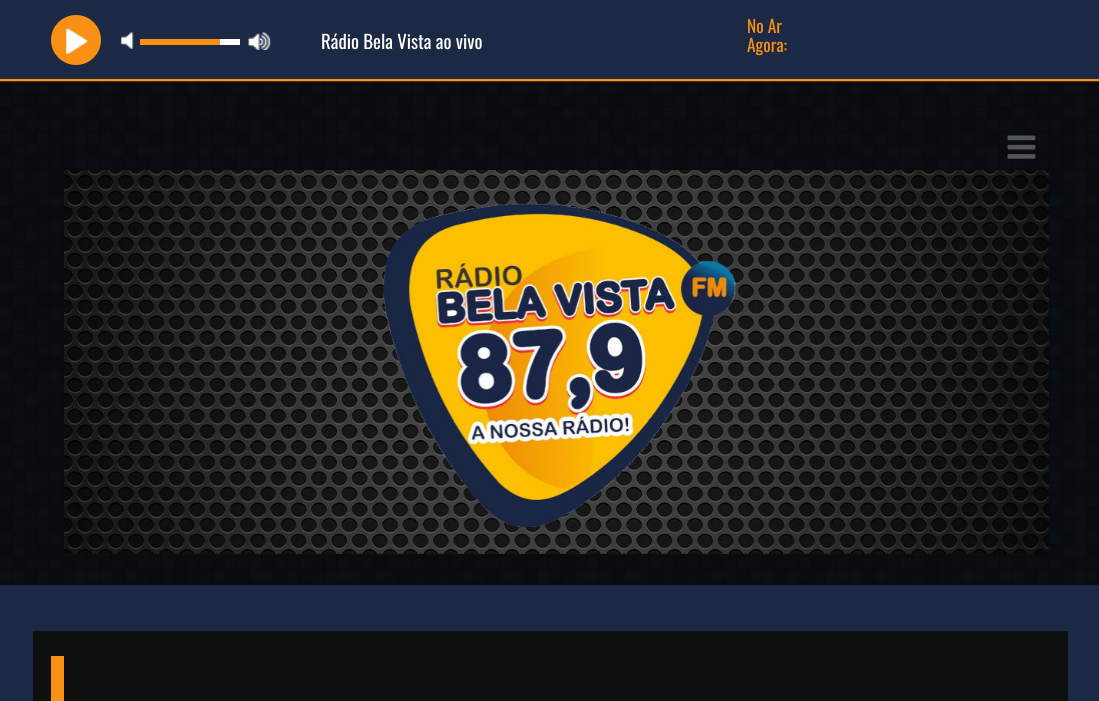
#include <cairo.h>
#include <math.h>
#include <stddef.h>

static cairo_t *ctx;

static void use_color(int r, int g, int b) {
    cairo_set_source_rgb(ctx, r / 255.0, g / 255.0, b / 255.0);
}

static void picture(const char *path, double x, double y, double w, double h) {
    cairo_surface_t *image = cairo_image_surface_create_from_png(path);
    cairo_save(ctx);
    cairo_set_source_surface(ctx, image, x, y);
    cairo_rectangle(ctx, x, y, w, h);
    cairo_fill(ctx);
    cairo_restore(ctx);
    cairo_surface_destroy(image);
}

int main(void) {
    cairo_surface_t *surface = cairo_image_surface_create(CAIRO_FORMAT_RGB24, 1099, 701);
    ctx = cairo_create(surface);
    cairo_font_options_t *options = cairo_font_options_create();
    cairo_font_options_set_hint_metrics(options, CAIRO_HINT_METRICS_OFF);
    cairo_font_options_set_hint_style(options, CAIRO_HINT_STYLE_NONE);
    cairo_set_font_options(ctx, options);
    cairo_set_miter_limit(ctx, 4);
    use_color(27, 41, 68);
    cairo_paint(ctx);
    use_color(248, 144, 21);
    cairo_rectangle(ctx, 0, 79, 1099, 3);
    cairo_fill(ctx);
    cairo_arc(ctx, 76, 40, 25, 0, 2 * M_PI);
    cairo_fill(ctx);
    picture("img1.png", 66, 28, 23, 26);
    picture("img2.png", 120, 32, 14, 17);
    use_color(255, 255, 255);
    cairo_rectangle(ctx, 220, 39, 20, 6);
    cairo_fill(ctx);
    use_color(248, 144, 21);
    cairo_rectangle(ctx, 140, 39, 80, 6);
    cairo_fill(ctx);
    picture("img3.png", 248, 32, 23, 18);
    cairo_select_font_face(ctx, "Oswald", CAIRO_FONT_SLANT_NORMAL, CAIRO_FONT_WEIGHT_NORMAL);
    cairo_set_font_size(ctx, 18.75);
    use_color(255, 255, 255);
    cairo_move_to(ctx, 321, 49);
    cairo_show_text(ctx, "Rádio Bela Vista ao vivo");
    cairo_set_font_size(ctx, 17.5);
    use_color(248, 144, 21);
    cairo_move_to(ctx, 747, 33);
    cairo_show_text(ctx, "No Ar");
    cairo_move_to(ctx, 747, 52);
    cairo_show_text(ctx, "Agora:");
    picture("img4.png", 0, 81, 1099, 504);
    picture("img5.png", 1007, 135, 29, 24);
    picture("img6.png", 64, 170, 985, 384);
    use_color(14, 15, 15);
    cairo_rectangle(ctx, 33, 631, 1035, 70);
    cairo_fill(ctx);
    use_color(248, 144, 21);
    cairo_rectangle(ctx, 51, 656, 13, 45);
    cairo_fill(ctx);
    cairo_surface_write_to_png(surface, "result.png");
    cairo_font_options_destroy(options);
    cairo_destroy(ctx);
    cairo_surface_destroy(surface);
    return 0;
}
